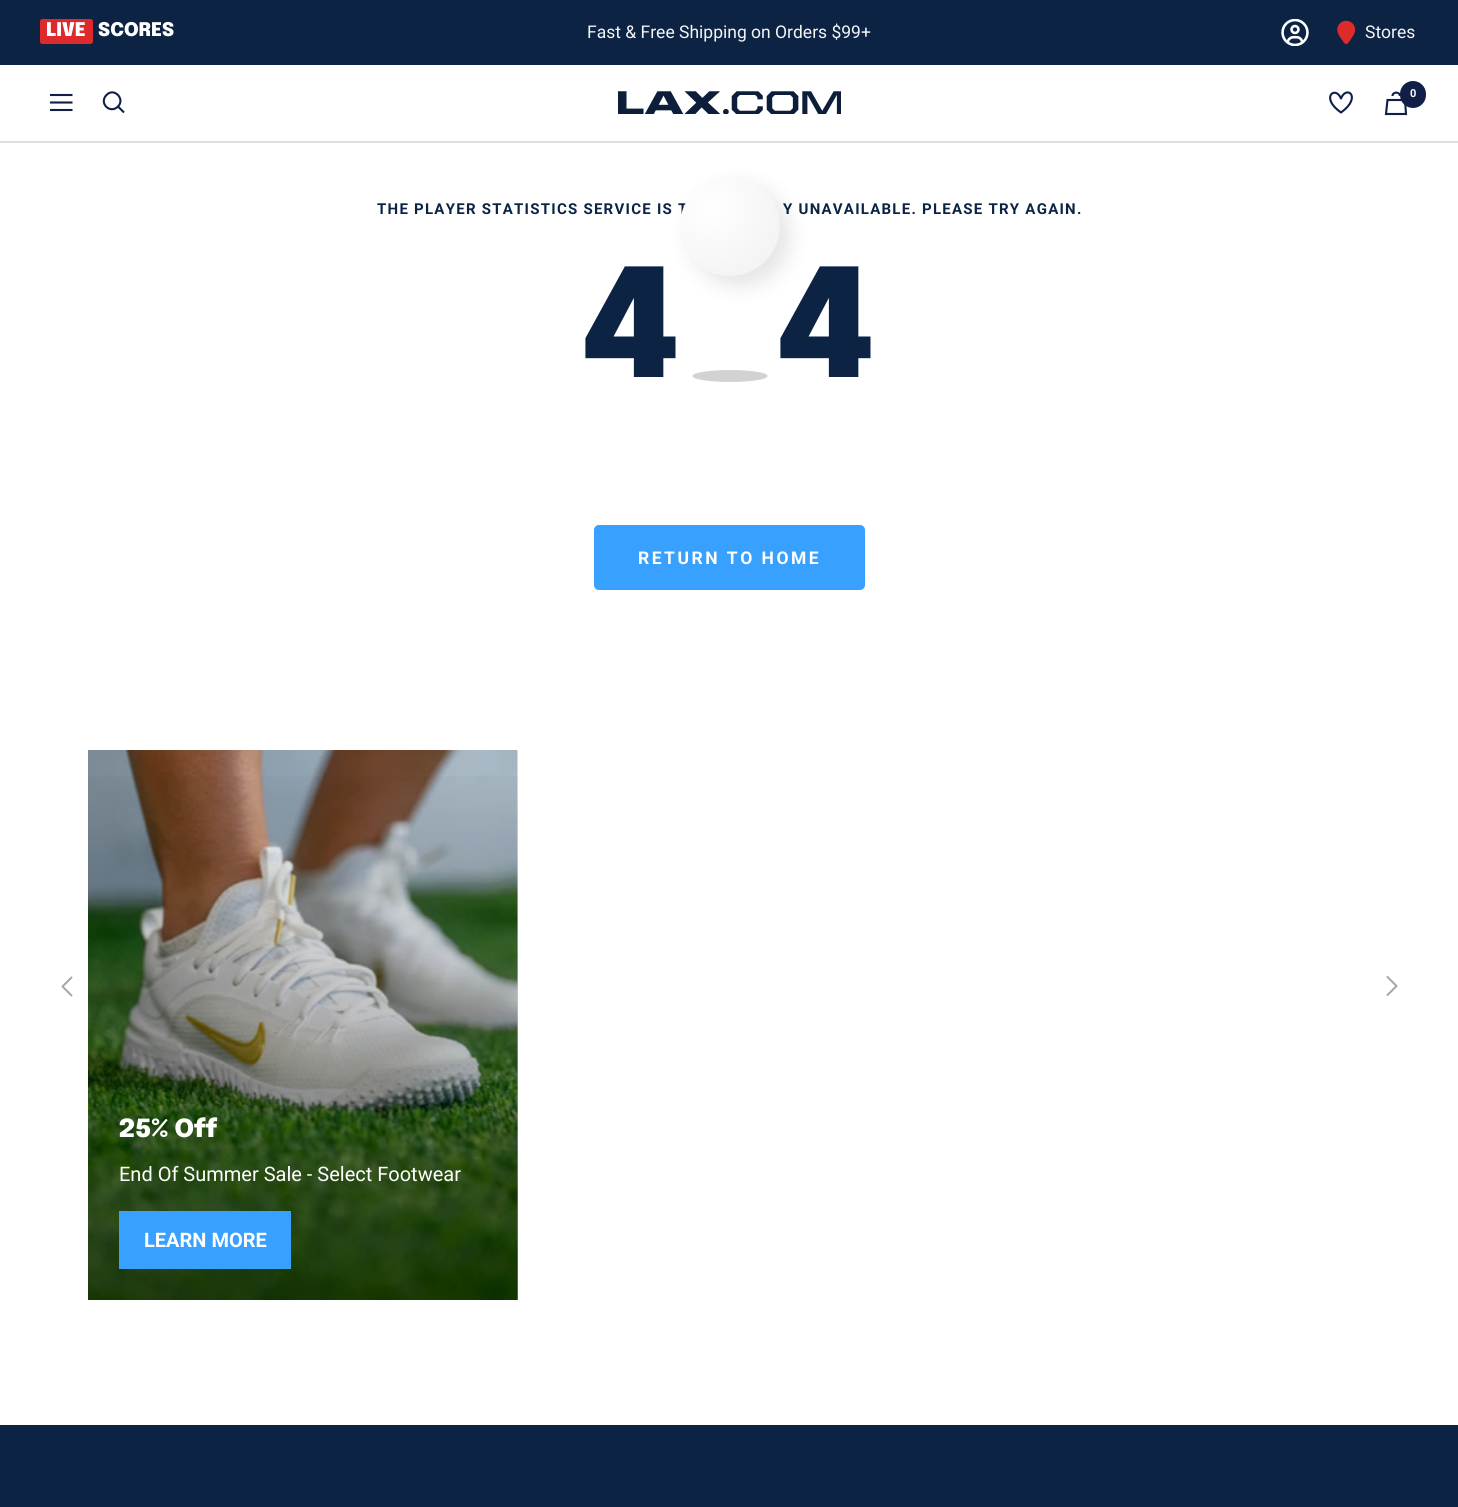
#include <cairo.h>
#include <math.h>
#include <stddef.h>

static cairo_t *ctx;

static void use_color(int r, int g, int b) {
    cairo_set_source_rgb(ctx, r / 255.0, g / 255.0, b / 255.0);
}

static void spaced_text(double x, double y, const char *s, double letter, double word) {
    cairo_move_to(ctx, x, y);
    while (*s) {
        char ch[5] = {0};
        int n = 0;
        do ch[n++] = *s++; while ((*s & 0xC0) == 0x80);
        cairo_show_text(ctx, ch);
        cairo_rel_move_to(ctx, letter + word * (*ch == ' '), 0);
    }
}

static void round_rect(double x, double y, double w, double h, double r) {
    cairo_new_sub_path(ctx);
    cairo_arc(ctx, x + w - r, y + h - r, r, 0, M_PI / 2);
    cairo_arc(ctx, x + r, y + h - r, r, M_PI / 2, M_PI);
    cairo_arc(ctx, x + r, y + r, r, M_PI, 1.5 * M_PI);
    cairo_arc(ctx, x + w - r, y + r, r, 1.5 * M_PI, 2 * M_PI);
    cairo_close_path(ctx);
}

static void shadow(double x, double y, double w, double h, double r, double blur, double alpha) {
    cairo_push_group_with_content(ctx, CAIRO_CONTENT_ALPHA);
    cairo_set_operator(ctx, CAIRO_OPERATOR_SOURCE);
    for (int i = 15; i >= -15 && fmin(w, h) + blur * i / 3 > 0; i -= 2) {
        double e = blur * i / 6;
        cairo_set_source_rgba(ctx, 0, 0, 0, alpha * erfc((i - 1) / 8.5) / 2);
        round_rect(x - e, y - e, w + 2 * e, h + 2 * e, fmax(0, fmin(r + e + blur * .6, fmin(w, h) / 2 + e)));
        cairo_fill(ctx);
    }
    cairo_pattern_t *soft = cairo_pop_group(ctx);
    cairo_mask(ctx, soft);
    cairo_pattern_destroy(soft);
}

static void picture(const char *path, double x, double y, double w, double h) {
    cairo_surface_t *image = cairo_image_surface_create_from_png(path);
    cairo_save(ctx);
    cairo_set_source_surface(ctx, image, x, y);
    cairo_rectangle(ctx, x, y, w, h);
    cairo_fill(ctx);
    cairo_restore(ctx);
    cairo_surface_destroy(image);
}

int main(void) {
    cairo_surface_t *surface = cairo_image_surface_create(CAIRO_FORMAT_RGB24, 1458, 1507);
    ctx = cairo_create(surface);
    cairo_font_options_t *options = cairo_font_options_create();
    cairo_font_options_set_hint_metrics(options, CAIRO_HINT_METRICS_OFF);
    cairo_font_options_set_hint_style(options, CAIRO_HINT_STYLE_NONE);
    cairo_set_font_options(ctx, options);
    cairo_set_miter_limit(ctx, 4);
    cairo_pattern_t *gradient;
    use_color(255, 255, 255);
    cairo_paint(ctx);
    use_color(12, 35, 68);
    cairo_rectangle(ctx, 0, 0, 1458, 65);
    cairo_fill(ctx);
    use_color(222, 42, 42);
    round_rect(40, 19, 53, 25, 2.5);
    cairo_fill(ctx);
    cairo_select_font_face(ctx, "Epilogue Black", CAIRO_FONT_SLANT_NORMAL, CAIRO_FONT_WEIGHT_NORMAL);
    cairo_set_font_size(ctx, 18.75);
    use_color(255, 255, 255);
    cairo_move_to(ctx, 46, 36);
    cairo_show_text(ctx, "LIVE");
    cairo_move_to(ctx, 98, 36);
    cairo_show_text(ctx, "SCORES");
    cairo_select_font_face(ctx, "Roboto", CAIRO_FONT_SLANT_NORMAL, CAIRO_FONT_WEIGHT_NORMAL);
    cairo_set_font_size(ctx, 17.5);
    use_color(245, 245, 245);
    cairo_move_to(ctx, 587, 38);
    cairo_show_text(ctx, "Fast & Free Shipping on Orders $99+");
    picture("img1.png", 1281, 19, 28, 27);
    picture("img2.png", 1337, 20, 19, 25);
    cairo_move_to(ctx, 1365, 38);
    cairo_show_text(ctx, "Stores");
    use_color(219, 222, 227);
    cairo_new_path(ctx);
    cairo_move_to(ctx, 0, 141);
    cairo_line_to(ctx, 0, 143);
    cairo_line_to(ctx, 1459, 143);
    cairo_line_to(ctx, 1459, 66);
    cairo_line_to(ctx, 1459, 141);
    cairo_close_path(ctx);
    cairo_fill(ctx);
    cairo_new_path(ctx);
    cairo_move_to(ctx, 50, 95);
    cairo_line_to(ctx, 72.5, 95);
    cairo_move_to(ctx, 50, 110);
    cairo_line_to(ctx, 72.5, 110);
    cairo_close_path(ctx);
    cairo_move_to(ctx, 50, 102.5);
    cairo_line_to(ctx, 72.5, 102.5);
    cairo_close_path(ctx);
    use_color(16, 30, 72);
    cairo_set_line_width(ctx, 2.1);
    cairo_stroke(ctx);
    cairo_new_path(ctx);
    cairo_move_to(ctx, 118, 106.5);
    cairo_curve_to(ctx, 125.5, 99, 114, 87, 106.5, 95);
    cairo_curve_to(ctx, 98.5, 103, 110, 114.5, 118, 106.5);
    cairo_close_path(ctx);
    cairo_move_to(ctx, 118, 106.5);
    cairo_line_to(ctx, 124, 112.5);
    cairo_stroke(ctx);
    picture("img3.png", 618, 91, 223, 23);
    cairo_new_path(ctx);
    cairo_move_to(ctx, 1341, 98.5);
    cairo_curve_to(ctx, 1335.5, 85, 1319.5, 97.5, 1341, 112.5);
    cairo_curve_to(ctx, 1362.5, 97, 1346.5, 84.5, 1341, 98.5);
    cairo_set_line_cap(ctx, CAIRO_LINE_CAP_ROUND);
    cairo_set_line_join(ctx, CAIRO_LINE_JOIN_ROUND);
    cairo_stroke(ctx);
    cairo_new_path(ctx);
    cairo_move_to(ctx, 1387.5, 100);
    cairo_line_to(ctx, 1405, 100);
    cairo_line_to(ctx, 1406, 114);
    cairo_line_to(ctx, 1386, 114);
    cairo_close_path(ctx);
    cairo_move_to(ctx, 1400, 96);
    cairo_curve_to(ctx, 1400, 91.5, 1392.5, 91.5, 1392.5, 96);
    cairo_set_line_cap(ctx, CAIRO_LINE_CAP_BUTT);
    cairo_set_line_join(ctx, CAIRO_LINE_JOIN_MITER);
    cairo_stroke(ctx);
    round_rect(1400, 81, 26, 27, 13);
    cairo_fill(ctx);
    cairo_select_font_face(ctx, "Roboto", CAIRO_FONT_SLANT_NORMAL, CAIRO_FONT_WEIGHT_BOLD);
    cairo_set_font_size(ctx, 11);
    use_color(255, 255, 255);
    cairo_move_to(ctx, 1410, 97);
    cairo_show_text(ctx, "0");
    cairo_set_font_size(ctx, 15);
    use_color(12, 35, 68);
    spaced_text(377, 214, "THE PLAYER STATISTICS SERVICE IS T", 1.25, 0);
    spaced_text(783, 214, "Y UNAVAILABLE. PLEASE TRY AGAIN.", 1.25, 0);
    cairo_select_font_face(ctx, "Epilogue Black", CAIRO_FONT_SLANT_NORMAL, CAIRO_FONT_WEIGHT_NORMAL);
    cairo_set_font_size(ctx, 150);
    cairo_move_to(ctx, 584, 377);
    cairo_show_text(ctx, "4");
    use_color(0, 0, 0);
    shadow(690, 186, 100, 100, 50, 10, 0.1);
    gradient = cairo_pattern_create_radial(710, 206, 0, 710, 206, 99);
    cairo_pattern_add_color_stop_rgba(gradient, 0, 1, 1, 1, 1);
    cairo_pattern_add_color_stop_rgba(gradient, 1, 0.941, 0.941, 0.941, 1);
    cairo_set_source(ctx, gradient);
    cairo_pattern_destroy(gradient);
    cairo_arc(ctx, 730, 226, 50, 0, 2 * M_PI);
    cairo_fill(ctx);
    use_color(210, 210, 210);
    cairo_new_path(ctx);
    cairo_move_to(ctx, 730, 370);
    cairo_curve_to(ctx, 750.5, 370, 767.5, 372.5, 767.5, 376);
    cairo_curve_to(ctx, 767.5, 379.5, 750.5, 382, 730, 382);
    cairo_curve_to(ctx, 709.5, 382, 692.5, 379.5, 692.5, 376);
    cairo_curve_to(ctx, 692.5, 372.5, 709.5, 370, 730, 370);
    cairo_close_path(ctx);
    cairo_fill(ctx);
    use_color(12, 35, 68);
    cairo_move_to(ctx, 779, 377);
    cairo_show_text(ctx, "4");
    use_color(56, 160, 255);
    round_rect(594, 525, 271, 65, 5);
    cairo_fill(ctx);
    cairo_select_font_face(ctx, "Roboto", CAIRO_FONT_SLANT_NORMAL, CAIRO_FONT_WEIGHT_BOLD);
    cairo_set_font_size(ctx, 17.5);
    use_color(255, 255, 255);
    spaced_text(638, 564, "RETURN TO HOME", 2.5, 0);
    cairo_new_path(ctx);
    cairo_move_to(ctx, 71.5, 977.5);
    cairo_line_to(ctx, 62.5, 986.5);
    cairo_line_to(ctx, 71.5, 995.5);
    use_color(166, 166, 166);
    cairo_set_line_width(ctx, 2);
    cairo_set_line_cap(ctx, CAIRO_LINE_CAP_ROUND);
    cairo_set_line_join(ctx, CAIRO_LINE_JOIN_ROUND);
    cairo_stroke(ctx);
    cairo_new_path(ctx);
    cairo_move_to(ctx, 1387.5, 995);
    cairo_line_to(ctx, 1396.5, 986);
    cairo_line_to(ctx, 1387.5, 977);
    cairo_stroke(ctx);
    picture("img4.png", 88, 750, 430, 550);
    gradient = cairo_pattern_create_linear(302, 750, 303, 1300);
    cairo_pattern_add_color_stop_rgba(gradient, 0, 0, 0, 0, 0);
    cairo_pattern_add_color_stop_rgba(gradient, 1, 0, 0, 0, 0.45);
    cairo_set_source(ctx, gradient);
    cairo_pattern_destroy(gradient);
    cairo_rectangle(ctx, 88, 776, 430, 524);
    cairo_fill(ctx);
    cairo_select_font_face(ctx, "Epilogue Black", CAIRO_FONT_SLANT_NORMAL, CAIRO_FONT_WEIGHT_NORMAL);
    cairo_set_font_size(ctx, 25);
    use_color(255, 255, 255);
    cairo_move_to(ctx, 119, 1137);
    cairo_show_text(ctx, "25% Off");
    cairo_select_font_face(ctx, "Roboto", CAIRO_FONT_SLANT_NORMAL, CAIRO_FONT_WEIGHT_NORMAL);
    cairo_set_font_size(ctx, 20);
    cairo_move_to(ctx, 119, 1181);
    cairo_show_text(ctx, "End Of Summer Sale - Select Footwear");
    use_color(56, 160, 255);
    cairo_rectangle(ctx, 119, 1211, 172, 58);
    cairo_fill(ctx);
    cairo_select_font_face(ctx, "Roboto", CAIRO_FONT_SLANT_NORMAL, CAIRO_FONT_WEIGHT_BOLD);
    use_color(255, 255, 255);
    cairo_move_to(ctx, 144, 1247);
    cairo_show_text(ctx, "LEARN MORE");
    use_color(12, 35, 68);
    cairo_rectangle(ctx, 0, 1425, 1458, 82);
    cairo_fill(ctx);
    cairo_surface_write_to_png(surface, "result.png");
    cairo_font_options_destroy(options);
    cairo_destroy(ctx);
    cairo_surface_destroy(surface);
    return 0;
}
